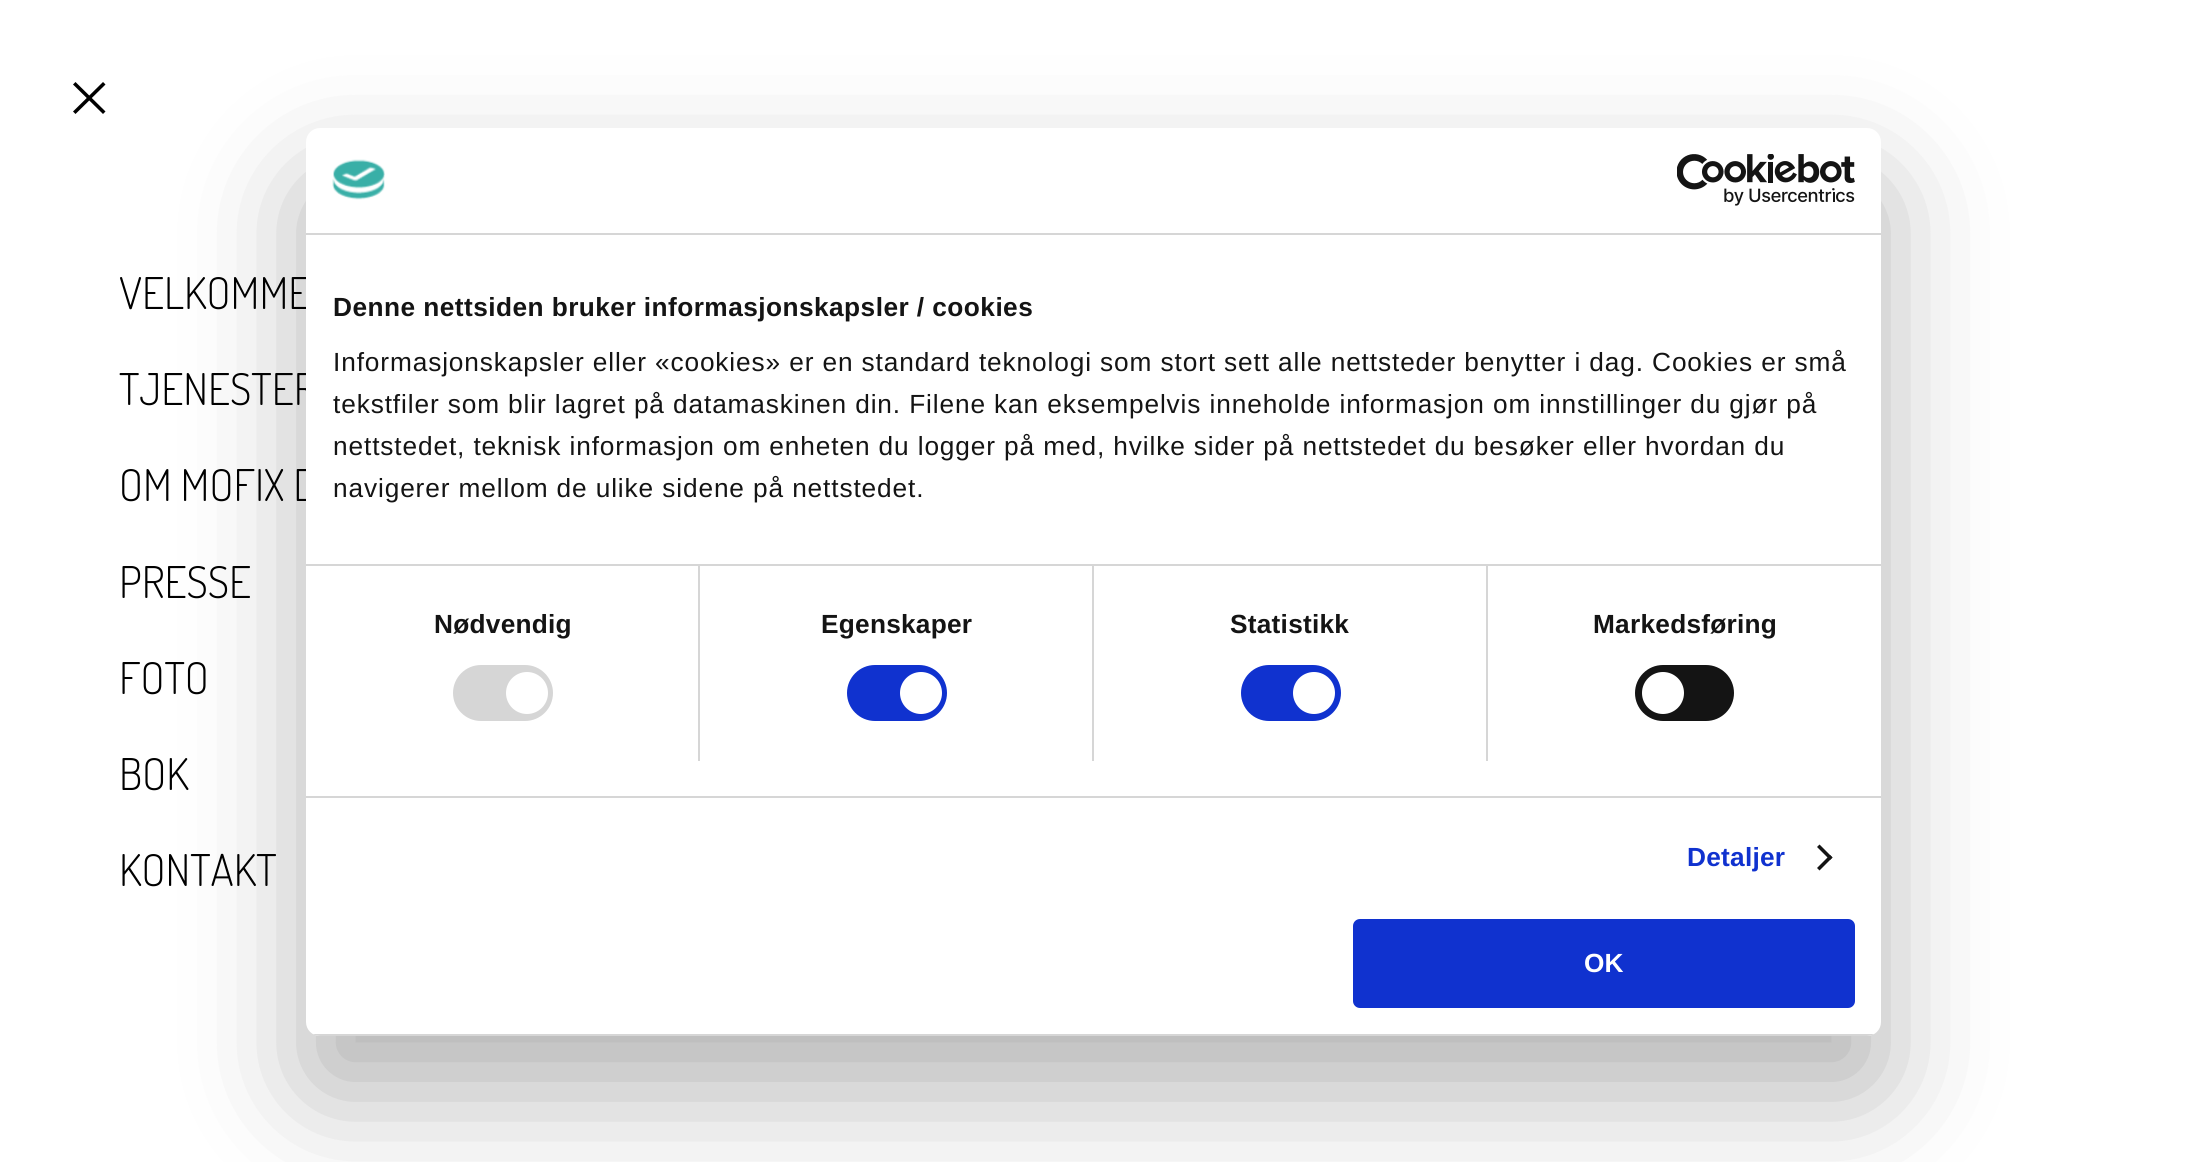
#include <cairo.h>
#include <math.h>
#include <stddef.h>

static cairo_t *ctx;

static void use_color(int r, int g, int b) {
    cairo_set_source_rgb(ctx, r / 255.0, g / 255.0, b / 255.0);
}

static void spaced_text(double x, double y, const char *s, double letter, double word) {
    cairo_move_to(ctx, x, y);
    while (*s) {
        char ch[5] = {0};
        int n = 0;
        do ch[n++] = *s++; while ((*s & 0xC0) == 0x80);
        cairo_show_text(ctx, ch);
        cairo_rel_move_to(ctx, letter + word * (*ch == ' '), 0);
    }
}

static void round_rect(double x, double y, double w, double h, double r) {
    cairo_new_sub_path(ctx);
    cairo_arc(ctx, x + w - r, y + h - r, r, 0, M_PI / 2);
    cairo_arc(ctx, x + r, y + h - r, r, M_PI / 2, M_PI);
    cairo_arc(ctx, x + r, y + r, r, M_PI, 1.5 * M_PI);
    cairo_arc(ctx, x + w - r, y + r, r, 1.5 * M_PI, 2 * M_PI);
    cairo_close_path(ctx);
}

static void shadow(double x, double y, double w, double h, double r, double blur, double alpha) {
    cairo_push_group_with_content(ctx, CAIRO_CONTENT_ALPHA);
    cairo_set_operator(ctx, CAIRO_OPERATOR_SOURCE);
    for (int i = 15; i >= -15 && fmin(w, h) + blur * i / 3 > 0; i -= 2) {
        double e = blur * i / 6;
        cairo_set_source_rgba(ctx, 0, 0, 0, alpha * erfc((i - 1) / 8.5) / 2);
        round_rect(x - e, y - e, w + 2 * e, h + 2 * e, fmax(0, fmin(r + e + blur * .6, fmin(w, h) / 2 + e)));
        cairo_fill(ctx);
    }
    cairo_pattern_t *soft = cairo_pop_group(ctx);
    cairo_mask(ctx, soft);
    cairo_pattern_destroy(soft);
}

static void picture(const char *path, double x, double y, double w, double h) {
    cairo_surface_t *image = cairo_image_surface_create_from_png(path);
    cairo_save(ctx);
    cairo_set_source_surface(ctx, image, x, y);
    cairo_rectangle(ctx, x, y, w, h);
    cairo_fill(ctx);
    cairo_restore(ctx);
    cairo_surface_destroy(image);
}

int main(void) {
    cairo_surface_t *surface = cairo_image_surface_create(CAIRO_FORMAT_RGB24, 2186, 1162);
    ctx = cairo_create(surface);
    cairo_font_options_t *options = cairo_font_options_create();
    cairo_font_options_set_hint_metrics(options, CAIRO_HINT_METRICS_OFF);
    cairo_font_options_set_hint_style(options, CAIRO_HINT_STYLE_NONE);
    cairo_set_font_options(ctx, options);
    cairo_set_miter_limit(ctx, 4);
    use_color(255, 255, 255);
    cairo_paint(ctx);
    use_color(0, 0, 0);
    cairo_new_path(ctx);
    cairo_move_to(ctx, 73, 111.5);
    cairo_line_to(ctx, 103, 82);
    cairo_line_to(ctx, 105.5, 84.5);
    cairo_line_to(ctx, 75.5, 114);
    cairo_close_path(ctx);
    cairo_fill(ctx);
    cairo_new_path(ctx);
    cairo_move_to(ctx, 75.5, 82);
    cairo_line_to(ctx, 105.5, 111.5);
    cairo_line_to(ctx, 103, 114);
    cairo_line_to(ctx, 73, 84.5);
    cairo_close_path(ctx);
    cairo_fill(ctx);
    cairo_select_font_face(ctx, "Dosis Light", CAIRO_FONT_SLANT_NORMAL, CAIRO_FONT_WEIGHT_NORMAL);
    cairo_set_font_size(ctx, 43.75);
    cairo_move_to(ctx, 119, 309);
    cairo_show_text(ctx, "VELKOMME");
    cairo_move_to(ctx, 119, 405);
    cairo_show_text(ctx, "TJENESTER");
    cairo_move_to(ctx, 119, 501);
    cairo_show_text(ctx, "OM MOFIX D");
    cairo_move_to(ctx, 119, 598);
    cairo_show_text(ctx, "PRESSE");
    cairo_move_to(ctx, 119, 694);
    cairo_show_text(ctx, "FOTO");
    cairo_move_to(ctx, 119, 790);
    cairo_show_text(ctx, "BOK");
    cairo_move_to(ctx, 119, 886);
    cairo_show_text(ctx, "KONTAKT");
    use_color(0, 0, 0);
    shadow(306, 184, 1575, 908, 14, 59.5, 0.3);
    use_color(255, 255, 255);
    round_rect(306, 128, 1575, 908, 14);
    cairo_fill(ctx);
    use_color(214, 214, 214);
    cairo_rectangle(ctx, 306, 233, 1575, 2);
    cairo_fill(ctx);
    picture("img1.png", 332, 159, 53, 41);
    picture("img2.png", 1677, 154, 178, 52);
    cairo_rectangle(ctx, 698, 565, 2, 196);
    cairo_fill(ctx);
    cairo_rectangle(ctx, 1092, 565, 2, 196);
    cairo_fill(ctx);
    cairo_rectangle(ctx, 1486, 565, 2, 196);
    cairo_fill(ctx);
    cairo_rectangle(ctx, 306, 564, 1575, 2);
    cairo_fill(ctx);
    cairo_select_font_face(ctx, "Liberation Sans", CAIRO_FONT_SLANT_NORMAL, CAIRO_FONT_WEIGHT_BOLD);
    cairo_set_font_size(ctx, 26.25);
    use_color(20, 20, 20);
    spaced_text(333, 316, "Denne nettsiden bruker informasjonskapsler / cookies", 0.45, 0);
    cairo_select_font_face(ctx, "Liberation Sans", CAIRO_FONT_SLANT_NORMAL, CAIRO_FONT_WEIGHT_NORMAL);
    spaced_text(333, 371, "Informasjonskapsler eller «cookies» er en standard teknologi som stort sett alle nettsteder benytter i dag. Cookies er små", 0.88, 0);
    spaced_text(333, 413, "tekstfiler som blir lagret på datamaskinen din. Filene kan eksempelvis inneholde informasjon om innstillinger du gjør på", 0.88, 0);
    spaced_text(333, 455, "nettstedet, teknisk informasjon om enheten du logger på med, hvilke sider på nettstedet du besøker eller hvordan du", 0.88, 0);
    spaced_text(333, 497, "navigerer mellom de ulike sidene på nettstedet.", 0.88, 0);
    use_color(214, 214, 214);
    cairo_rectangle(ctx, 306, 796, 1575, 2);
    cairo_fill(ctx);
    cairo_select_font_face(ctx, "Liberation Sans", CAIRO_FONT_SLANT_NORMAL, CAIRO_FONT_WEIGHT_BOLD);
    use_color(20, 20, 20);
    spaced_text(434, 633, "Nødvendig", 0.25, 0);
    use_color(214, 214, 214);
    round_rect(453, 665, 100, 56, 28);
    cairo_fill(ctx);
    use_color(255, 255, 255);
    cairo_arc(ctx, 527, 693, 21, 0, 2 * M_PI);
    cairo_fill(ctx);
    use_color(20, 20, 20);
    spaced_text(821, 633, "Egenskaper", 0.25, 0);
    use_color(16, 50, 207);
    round_rect(847, 665, 100, 56, 28);
    cairo_fill(ctx);
    use_color(255, 255, 255);
    cairo_arc(ctx, 921, 693, 21, 0, 2 * M_PI);
    cairo_fill(ctx);
    use_color(20, 20, 20);
    spaced_text(1230, 633, "Statistikk", 0.25, 0);
    use_color(16, 50, 207);
    round_rect(1241, 665, 100, 56, 28);
    cairo_fill(ctx);
    use_color(255, 255, 255);
    cairo_arc(ctx, 1314, 693, 21, 0, 2 * M_PI);
    cairo_fill(ctx);
    use_color(20, 20, 20);
    spaced_text(1593, 633, "Markedsføring", 0.25, 0);
    round_rect(1635, 665, 99, 56, 28);
    cairo_fill(ctx);
    use_color(255, 255, 255);
    cairo_arc(ctx, 1663, 693, 21, 0, 2 * M_PI);
    cairo_fill(ctx);
    use_color(16, 50, 207);
    spaced_text(1687, 866, "Detaljer", 0.25, 0);
    use_color(20, 20, 20);
    cairo_new_path(ctx);
    cairo_move_to(ctx, 1819.5, 844.5);
    cairo_line_to(ctx, 1832.5, 857.5);
    cairo_line_to(ctx, 1830, 860);
    cairo_line_to(ctx, 1817, 847);
    cairo_close_path(ctx);
    cairo_fill(ctx);
    cairo_new_path(ctx);
    cairo_move_to(ctx, 1830, 855);
    cairo_line_to(ctx, 1832.5, 857.5);
    cairo_line_to(ctx, 1819.5, 870.5);
    cairo_line_to(ctx, 1817, 868);
    cairo_close_path(ctx);
    cairo_fill(ctx);
    cairo_save(ctx);
    round_rect(306, 128, 1575, 908, 14);
    cairo_clip(ctx);
    use_color(214, 214, 214);
    cairo_rectangle(ctx, 306, 1034, 1575, 2);
    cairo_fill(ctx);
    cairo_restore(ctx);
    use_color(16, 50, 207);
    round_rect(1355, 921, 498, 85, 5);
    cairo_fill_preserve(ctx);
    cairo_set_line_width(ctx, 4);
    cairo_stroke(ctx);
    use_color(255, 255, 255);
    cairo_move_to(ctx, 1584, 972);
    cairo_show_text(ctx, "OK");
    cairo_surface_write_to_png(surface, "result.png");
    cairo_font_options_destroy(options);
    cairo_destroy(ctx);
    cairo_surface_destroy(surface);
    return 0;
}
